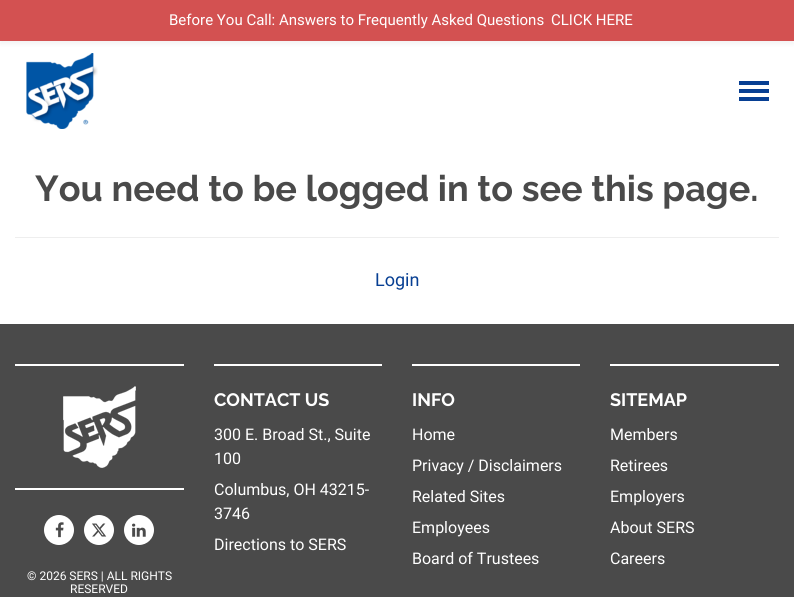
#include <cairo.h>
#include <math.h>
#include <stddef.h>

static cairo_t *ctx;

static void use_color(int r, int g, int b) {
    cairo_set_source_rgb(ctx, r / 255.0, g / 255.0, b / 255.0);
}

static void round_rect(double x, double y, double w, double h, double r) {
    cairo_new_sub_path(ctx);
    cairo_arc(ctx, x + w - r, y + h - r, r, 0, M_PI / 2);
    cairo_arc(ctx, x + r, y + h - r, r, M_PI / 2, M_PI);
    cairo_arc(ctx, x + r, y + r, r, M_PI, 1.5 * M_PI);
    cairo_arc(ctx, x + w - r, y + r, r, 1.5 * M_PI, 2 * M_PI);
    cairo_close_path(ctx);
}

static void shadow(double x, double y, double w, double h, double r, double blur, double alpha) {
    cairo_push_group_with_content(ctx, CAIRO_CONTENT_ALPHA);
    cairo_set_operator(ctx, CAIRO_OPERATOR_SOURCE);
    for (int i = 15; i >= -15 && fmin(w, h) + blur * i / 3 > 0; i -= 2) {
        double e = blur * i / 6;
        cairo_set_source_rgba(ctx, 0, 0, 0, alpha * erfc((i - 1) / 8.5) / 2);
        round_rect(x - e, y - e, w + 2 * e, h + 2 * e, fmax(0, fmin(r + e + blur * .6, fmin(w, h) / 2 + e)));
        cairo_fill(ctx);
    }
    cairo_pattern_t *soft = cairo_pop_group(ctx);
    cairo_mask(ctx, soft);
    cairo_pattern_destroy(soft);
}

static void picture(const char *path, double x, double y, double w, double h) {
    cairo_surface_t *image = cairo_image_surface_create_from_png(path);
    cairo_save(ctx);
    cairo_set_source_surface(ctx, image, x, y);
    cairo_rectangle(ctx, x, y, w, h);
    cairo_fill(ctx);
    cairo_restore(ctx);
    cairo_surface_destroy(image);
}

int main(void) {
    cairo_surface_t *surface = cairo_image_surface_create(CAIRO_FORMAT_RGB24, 794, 597);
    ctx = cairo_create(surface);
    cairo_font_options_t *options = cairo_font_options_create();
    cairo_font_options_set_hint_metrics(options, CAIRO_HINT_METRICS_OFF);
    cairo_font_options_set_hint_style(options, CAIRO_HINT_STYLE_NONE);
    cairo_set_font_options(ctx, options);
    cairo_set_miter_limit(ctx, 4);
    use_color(255, 255, 255);
    cairo_paint(ctx);
    use_color(0, 0, 0);
    shadow(0, 3, 794, 41, 0, 2, 0.05);
    use_color(211, 81, 81);
    cairo_rectangle(ctx, 0, 0, 794, 41);
    cairo_fill(ctx);
    cairo_select_font_face(ctx, "Roboto", CAIRO_FONT_SLANT_NORMAL, CAIRO_FONT_WEIGHT_NORMAL);
    cairo_set_font_size(ctx, 15);
    use_color(255, 255, 255);
    cairo_move_to(ctx, 169, 25);
    cairo_show_text(ctx, "Before You Call: Answers to Frequently Asked Questions");
    cairo_move_to(ctx, 551, 25);
    cairo_show_text(ctx, "CLICK HERE");
    picture("img1.png", 26, 53, 72, 76);
    use_color(7, 63, 147);
    cairo_rectangle(ctx, 739, 89, 30, 4);
    cairo_fill(ctx);
    cairo_rectangle(ctx, 739, 81, 30, 4);
    cairo_fill(ctx);
    cairo_rectangle(ctx, 739, 97, 30, 4);
    cairo_fill(ctx);
    cairo_select_font_face(ctx, "Raleway", CAIRO_FONT_SLANT_NORMAL, CAIRO_FONT_WEIGHT_BOLD);
    cairo_set_font_size(ctx, 36);
    use_color(74, 74, 74);
    cairo_move_to(ctx, 35, 201);
    cairo_show_text(ctx, "You need to be logged in to see this page.");
    use_color(238, 238, 238);
    cairo_rectangle(ctx, 15, 237, 764, 1);
    cairo_fill(ctx);
    cairo_select_font_face(ctx, "Roboto", CAIRO_FONT_SLANT_NORMAL, CAIRO_FONT_WEIGHT_NORMAL);
    cairo_set_font_size(ctx, 18);
    use_color(7, 63, 147);
    cairo_move_to(ctx, 375, 286);
    cairo_show_text(ctx, "Login");
    use_color(74, 74, 74);
    cairo_rectangle(ctx, 0, 324, 794, 273);
    cairo_fill(ctx);
    use_color(255, 255, 255);
    cairo_rectangle(ctx, 214, 364, 168, 2);
    cairo_fill(ctx);
    cairo_select_font_face(ctx, "Raleway", CAIRO_FONT_SLANT_NORMAL, CAIRO_FONT_WEIGHT_BOLD);
    cairo_move_to(ctx, 214, 406);
    cairo_show_text(ctx, "CONTACT US");
    cairo_select_font_face(ctx, "Roboto", CAIRO_FONT_SLANT_NORMAL, CAIRO_FONT_WEIGHT_NORMAL);
    cairo_set_font_size(ctx, 16);
    cairo_move_to(ctx, 214, 440);
    cairo_show_text(ctx, "300 E. Broad St., Suite");
    cairo_move_to(ctx, 214, 464);
    cairo_show_text(ctx, "100");
    cairo_move_to(ctx, 214, 495);
    cairo_show_text(ctx, "Columbus, OH 43215-");
    cairo_move_to(ctx, 214, 519);
    cairo_show_text(ctx, "3746");
    cairo_move_to(ctx, 214, 550);
    cairo_show_text(ctx, "Directions to SERS");
    cairo_rectangle(ctx, 412, 364, 168, 2);
    cairo_fill(ctx);
    cairo_select_font_face(ctx, "Raleway", CAIRO_FONT_SLANT_NORMAL, CAIRO_FONT_WEIGHT_BOLD);
    cairo_set_font_size(ctx, 18);
    cairo_move_to(ctx, 412, 406);
    cairo_show_text(ctx, "INFO");
    cairo_select_font_face(ctx, "Roboto", CAIRO_FONT_SLANT_NORMAL, CAIRO_FONT_WEIGHT_NORMAL);
    cairo_set_font_size(ctx, 16);
    cairo_move_to(ctx, 412, 440);
    cairo_show_text(ctx, "Home");
    cairo_move_to(ctx, 412, 471);
    cairo_show_text(ctx, "Privacy / Disclaimers");
    cairo_move_to(ctx, 412, 502);
    cairo_show_text(ctx, "Related Sites");
    cairo_move_to(ctx, 412, 533);
    cairo_show_text(ctx, "Employees");
    cairo_move_to(ctx, 412, 564);
    cairo_show_text(ctx, "Board of Trustees");
    cairo_rectangle(ctx, 610, 364, 169, 2);
    cairo_fill(ctx);
    cairo_select_font_face(ctx, "Raleway", CAIRO_FONT_SLANT_NORMAL, CAIRO_FONT_WEIGHT_BOLD);
    cairo_set_font_size(ctx, 18);
    cairo_move_to(ctx, 610, 406);
    cairo_show_text(ctx, "SITEMAP");
    cairo_select_font_face(ctx, "Roboto", CAIRO_FONT_SLANT_NORMAL, CAIRO_FONT_WEIGHT_NORMAL);
    cairo_set_font_size(ctx, 16);
    cairo_move_to(ctx, 610, 440);
    cairo_show_text(ctx, "Members");
    cairo_move_to(ctx, 610, 471);
    cairo_show_text(ctx, "Retirees");
    cairo_move_to(ctx, 610, 502);
    cairo_show_text(ctx, "Employers");
    cairo_move_to(ctx, 610, 533);
    cairo_show_text(ctx, "About SERS");
    cairo_move_to(ctx, 610, 564);
    cairo_show_text(ctx, "Careers");
    cairo_rectangle(ctx, 15, 364, 169, 2);
    cairo_fill(ctx);
    cairo_rectangle(ctx, 15, 488, 169, 2);
    cairo_fill(ctx);
    picture("img2.png", 63, 386, 73, 82);
    cairo_arc(ctx, 59, 530, 15, 0, 2 * M_PI);
    cairo_fill(ctx);
    picture("img3.png", 55, 522, 9, 16);
    cairo_arc(ctx, 99, 530, 15, 0, 2 * M_PI);
    cairo_fill(ctx);
    picture("img4.png", 92, 523, 15, 14);
    cairo_arc(ctx, 139, 530, 15, 0, 2 * M_PI);
    cairo_fill(ctx);
    picture("img5.png", 132, 523, 14, 14);
    cairo_set_font_size(ctx, 12);
    cairo_move_to(ctx, 27, 580);
    cairo_show_text(ctx, "© 2026 SERS | ALL RIGHTS");
    cairo_move_to(ctx, 70, 593);
    cairo_show_text(ctx, "RESERVED");
    cairo_surface_write_to_png(surface, "result.png");
    cairo_font_options_destroy(options);
    cairo_destroy(ctx);
    cairo_surface_destroy(surface);
    return 0;
}
